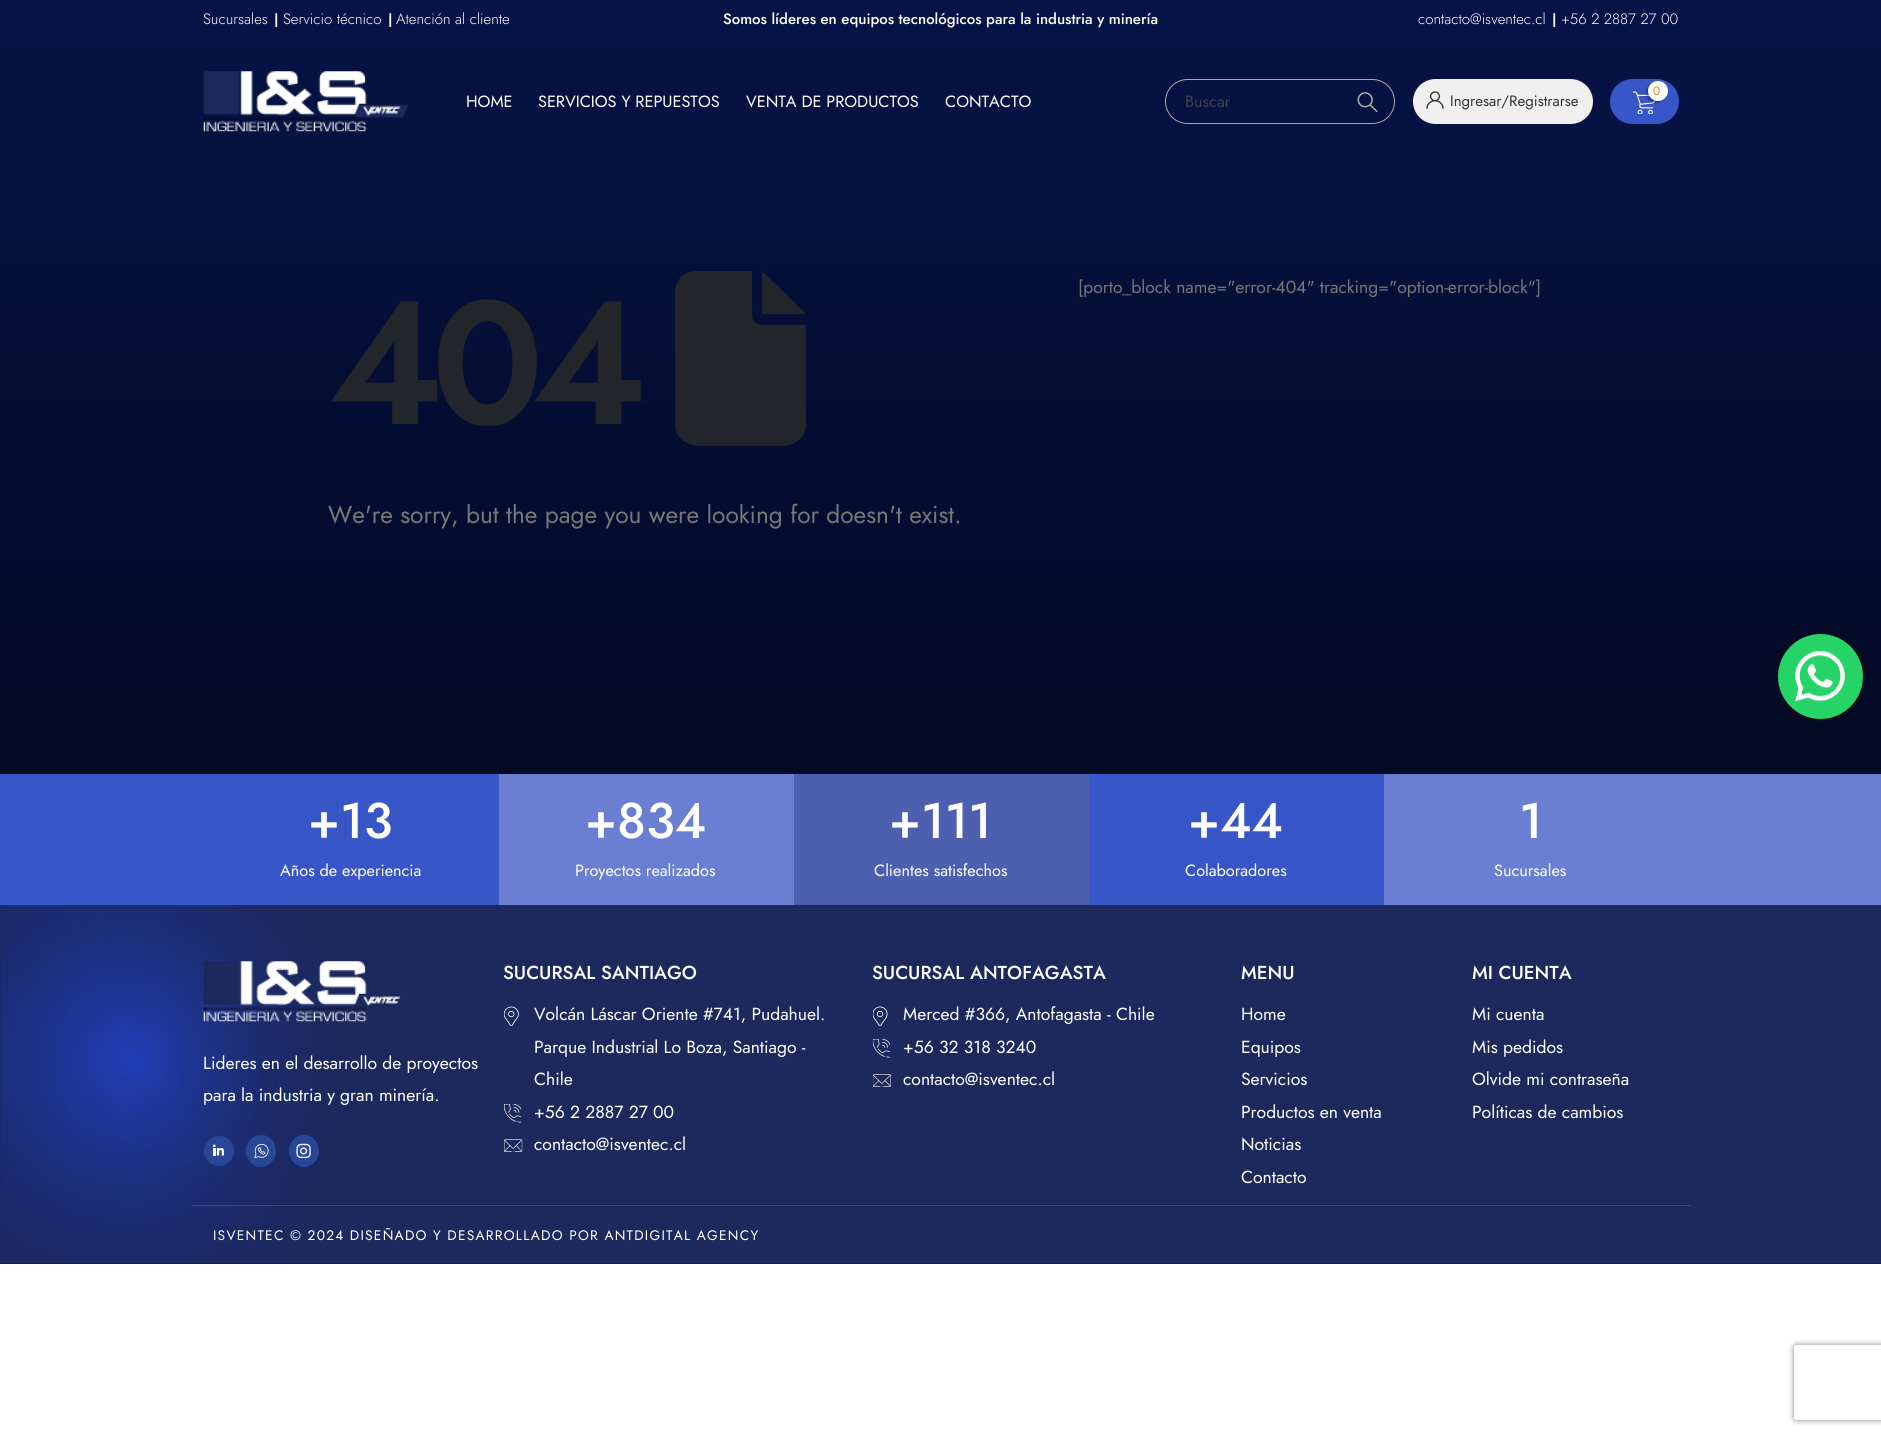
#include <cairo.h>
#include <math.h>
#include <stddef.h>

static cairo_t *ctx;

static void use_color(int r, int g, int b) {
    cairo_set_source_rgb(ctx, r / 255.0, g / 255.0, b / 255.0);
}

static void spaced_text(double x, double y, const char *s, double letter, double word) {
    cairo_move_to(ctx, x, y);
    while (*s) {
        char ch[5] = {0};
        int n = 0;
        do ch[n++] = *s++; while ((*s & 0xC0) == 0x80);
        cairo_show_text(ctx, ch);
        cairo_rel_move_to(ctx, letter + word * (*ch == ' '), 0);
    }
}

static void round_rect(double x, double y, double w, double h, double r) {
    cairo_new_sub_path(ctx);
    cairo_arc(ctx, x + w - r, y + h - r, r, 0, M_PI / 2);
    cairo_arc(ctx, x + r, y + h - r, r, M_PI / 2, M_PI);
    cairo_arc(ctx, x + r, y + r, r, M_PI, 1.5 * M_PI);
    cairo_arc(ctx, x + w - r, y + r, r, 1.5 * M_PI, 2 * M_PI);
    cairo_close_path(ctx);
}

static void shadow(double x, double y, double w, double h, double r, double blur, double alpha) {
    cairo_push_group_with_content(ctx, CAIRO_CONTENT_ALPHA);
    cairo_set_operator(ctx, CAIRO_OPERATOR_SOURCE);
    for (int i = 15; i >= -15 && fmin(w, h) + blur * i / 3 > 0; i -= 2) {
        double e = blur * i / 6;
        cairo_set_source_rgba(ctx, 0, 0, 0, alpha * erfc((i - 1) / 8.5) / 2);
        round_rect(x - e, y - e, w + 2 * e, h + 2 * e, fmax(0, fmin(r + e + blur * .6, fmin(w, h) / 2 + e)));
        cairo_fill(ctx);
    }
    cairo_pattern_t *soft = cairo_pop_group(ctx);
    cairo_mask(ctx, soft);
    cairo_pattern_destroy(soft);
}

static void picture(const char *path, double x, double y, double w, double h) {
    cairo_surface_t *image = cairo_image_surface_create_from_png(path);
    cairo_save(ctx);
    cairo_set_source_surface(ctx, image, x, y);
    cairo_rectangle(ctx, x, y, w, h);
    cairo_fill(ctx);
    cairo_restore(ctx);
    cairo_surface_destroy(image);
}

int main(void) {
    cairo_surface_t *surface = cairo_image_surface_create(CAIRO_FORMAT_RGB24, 1881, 1437);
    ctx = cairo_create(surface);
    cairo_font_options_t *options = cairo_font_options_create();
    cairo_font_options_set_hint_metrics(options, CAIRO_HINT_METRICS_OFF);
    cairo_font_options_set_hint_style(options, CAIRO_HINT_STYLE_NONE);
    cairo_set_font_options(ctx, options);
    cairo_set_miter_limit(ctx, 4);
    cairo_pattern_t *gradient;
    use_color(255, 255, 255);
    cairo_paint(ctx);
    gradient = cairo_pattern_create_linear(941, 0, 941, 1264);
    cairo_pattern_add_color_stop_rgba(gradient, 0, 0.024, 0.075, 0.275, 1);
    cairo_pattern_add_color_stop_rgba(gradient, 1, 0.004, 0.016, 0.055, 1);
    cairo_set_source(ctx, gradient);
    cairo_pattern_destroy(gradient);
    cairo_rectangle(ctx, 0, 38, 1881, 1226);
    cairo_fill(ctx);
    use_color(6, 19, 70);
    cairo_rectangle(ctx, 0, 0, 1881, 38);
    cairo_fill(ctx);
    cairo_select_font_face(ctx, "Jost Light", CAIRO_FONT_SLANT_NORMAL, CAIRO_FONT_WEIGHT_NORMAL);
    cairo_set_font_size(ctx, 15);
    use_color(255, 255, 255);
    cairo_move_to(ctx, 203, 24);
    cairo_show_text(ctx, "Sucursales");
    cairo_select_font_face(ctx, "Jost SemiBold", CAIRO_FONT_SLANT_NORMAL, CAIRO_FONT_WEIGHT_NORMAL);
    cairo_set_font_size(ctx, 13.75);
    cairo_move_to(ctx, 274, 24);
    cairo_show_text(ctx, "|");
    cairo_select_font_face(ctx, "Jost Light", CAIRO_FONT_SLANT_NORMAL, CAIRO_FONT_WEIGHT_NORMAL);
    cairo_set_font_size(ctx, 15);
    cairo_move_to(ctx, 283, 24);
    cairo_show_text(ctx, "Servicio técnico");
    cairo_select_font_face(ctx, "Jost SemiBold", CAIRO_FONT_SLANT_NORMAL, CAIRO_FONT_WEIGHT_NORMAL);
    cairo_set_font_size(ctx, 13.75);
    cairo_move_to(ctx, 388, 24);
    cairo_show_text(ctx, "|");
    cairo_select_font_face(ctx, "Jost Light", CAIRO_FONT_SLANT_NORMAL, CAIRO_FONT_WEIGHT_NORMAL);
    cairo_set_font_size(ctx, 15);
    cairo_move_to(ctx, 396, 24);
    cairo_show_text(ctx, "Atención al cliente");
    cairo_select_font_face(ctx, "Jost Medium", CAIRO_FONT_SLANT_NORMAL, CAIRO_FONT_WEIGHT_NORMAL);
    cairo_move_to(ctx, 723, 24);
    cairo_show_text(ctx, "Somos líderes en equipos tecnológicos para la industria y minería");
    cairo_select_font_face(ctx, "Jost Light", CAIRO_FONT_SLANT_NORMAL, CAIRO_FONT_WEIGHT_NORMAL);
    cairo_move_to(ctx, 1418, 24);
    cairo_show_text(ctx, "contacto@isventec.cl");
    cairo_select_font_face(ctx, "Jost SemiBold", CAIRO_FONT_SLANT_NORMAL, CAIRO_FONT_WEIGHT_NORMAL);
    cairo_set_font_size(ctx, 13.75);
    cairo_move_to(ctx, 1552, 24);
    cairo_show_text(ctx, "|");
    cairo_select_font_face(ctx, "Jost Light", CAIRO_FONT_SLANT_NORMAL, CAIRO_FONT_WEIGHT_NORMAL);
    cairo_set_font_size(ctx, 15);
    cairo_move_to(ctx, 1561, 24);
    cairo_show_text(ctx, "+56 2 2887 27 00");
    picture("img1.png", 203, 71, 206, 61);
    cairo_select_font_face(ctx, "Jost", CAIRO_FONT_SLANT_NORMAL, CAIRO_FONT_WEIGHT_NORMAL);
    cairo_set_font_size(ctx, 16.25);
    cairo_move_to(ctx, 466, 107);
    cairo_show_text(ctx, "HOME");
    cairo_move_to(ctx, 538, 107);
    cairo_show_text(ctx, "SERVICIOS Y REPUESTOS");
    cairo_move_to(ctx, 746, 107);
    cairo_show_text(ctx, "VENTA DE PRODUCTOS");
    cairo_move_to(ctx, 945, 107);
    cairo_show_text(ctx, "CONTACTO");
    use_color(57, 86, 201);
    round_rect(1610, 79, 69, 45, 22.5);
    cairo_fill(ctx);
    picture("img2.png", 1633, 91, 23, 23);
    use_color(0, 0, 0);
    shadow(1646, 83, 20, 20, 10, 1, 0.3);
    use_color(255, 255, 255);
    cairo_arc(ctx, 1658, 91, 10, 0, 2 * M_PI);
    cairo_fill(ctx);
    cairo_set_font_size(ctx, 12);
    use_color(234, 130, 42);
    cairo_move_to(ctx, 1653, 95);
    cairo_show_text(ctx, "0");
    round_rect(1165.5, 79.5, 229, 44, 22);
    use_color(168, 168, 168);
    cairo_set_line_width(ctx, 1);
    cairo_stroke(ctx);
    cairo_set_font_size(ctx, 16.25);
    use_color(61, 65, 79);
    cairo_move_to(ctx, 1185, 107);
    cairo_show_text(ctx, "Buscar");
    picture("img3.png", 1357, 92, 21, 21);
    use_color(240, 240, 240);
    round_rect(1413, 79, 180, 45, 22.5);
    cairo_fill(ctx);
    picture("img4.png", 1426, 91, 18, 18);
    cairo_set_font_size(ctx, 15);
    use_color(51, 51, 51);
    cairo_move_to(ctx, 1450, 106);
    cairo_show_text(ctx, "Ingresar/Registrarse");
    cairo_set_font_size(ctx, 17.5);
    use_color(119, 119, 119);
    cairo_move_to(ctx, 1078, 293);
    cairo_show_text(ctx, "[porto_block name=\"error-404\" tracking=\"option-error-block\"]");
    cairo_select_font_face(ctx, "Jost SemiBold", CAIRO_FONT_SLANT_NORMAL, CAIRO_FONT_WEIGHT_NORMAL);
    cairo_set_font_size(ctx, 175);
    use_color(34, 37, 41);
    spaced_text(328, 424, "404", -12.5, 0);
    cairo_new_path(ctx);
    cairo_move_to(ctx, 675, 292);
    cairo_curve_to(ctx, 675, 286, 677, 281, 681, 277);
    cairo_curve_to(ctx, 686, 273, 691, 271, 697, 271);
    cairo_line_to(ctx, 752, 271);
    cairo_line_to(ctx, 752, 307);
    cairo_curve_to(ctx, 752, 324, 753, 325, 770, 325);
    cairo_line_to(ctx, 806, 325);
    cairo_line_to(ctx, 806, 424);
    cairo_curve_to(ctx, 806, 430, 804, 435, 800, 439);
    cairo_curve_to(ctx, 796, 443, 791, 445, 784, 446);
    cairo_line_to(ctx, 697, 446);
    cairo_curve_to(ctx, 691, 445, 686, 443, 681, 439);
    cairo_curve_to(ctx, 677, 435, 675, 430, 675, 424);
    cairo_close_path(ctx);
    cairo_move_to(ctx, 806, 314);
    cairo_line_to(ctx, 762, 314);
    cairo_line_to(ctx, 762, 271);
    cairo_close_path(ctx);
    cairo_fill(ctx);
    cairo_select_font_face(ctx, "Jost", CAIRO_FONT_SLANT_NORMAL, CAIRO_FONT_WEIGHT_NORMAL);
    cairo_set_font_size(ctx, 24.5);
    use_color(119, 119, 119);
    cairo_move_to(ctx, 328, 523);
    cairo_show_text(ctx, "We're sorry, but the page you were looking for doesn't exist.");
    use_color(57, 86, 201);
    cairo_rectangle(ctx, 0, 774, 499, 131);
    cairo_fill(ctx);
    use_color(106, 127, 209);
    cairo_rectangle(ctx, 1384, 774, 497, 131);
    cairo_fill(ctx);
    cairo_select_font_face(ctx, "Jost Medium", CAIRO_FONT_SLANT_NORMAL, CAIRO_FONT_WEIGHT_NORMAL);
    cairo_set_font_size(ctx, 50);
    use_color(255, 255, 255);
    cairo_move_to(ctx, 308, 838);
    cairo_show_text(ctx, "+13");
    cairo_select_font_face(ctx, "Jost", CAIRO_FONT_SLANT_NORMAL, CAIRO_FONT_WEIGHT_NORMAL);
    cairo_set_font_size(ctx, 16.25);
    cairo_move_to(ctx, 280, 876);
    cairo_show_text(ctx, "Años de experiencia");
    use_color(106, 127, 209);
    cairo_rectangle(ctx, 499, 774, 295, 131);
    cairo_fill(ctx);
    cairo_select_font_face(ctx, "Jost Medium", CAIRO_FONT_SLANT_NORMAL, CAIRO_FONT_WEIGHT_NORMAL);
    cairo_set_font_size(ctx, 50);
    use_color(255, 255, 255);
    cairo_move_to(ctx, 585, 838);
    cairo_show_text(ctx, "+834");
    cairo_select_font_face(ctx, "Jost", CAIRO_FONT_SLANT_NORMAL, CAIRO_FONT_WEIGHT_NORMAL);
    cairo_set_font_size(ctx, 16.25);
    cairo_move_to(ctx, 575, 876);
    cairo_show_text(ctx, "Proyectos realizados");
    use_color(76, 96, 175);
    cairo_rectangle(ctx, 794, 774, 295, 131);
    cairo_fill(ctx);
    cairo_select_font_face(ctx, "Jost Medium", CAIRO_FONT_SLANT_NORMAL, CAIRO_FONT_WEIGHT_NORMAL);
    cairo_set_font_size(ctx, 50);
    use_color(255, 255, 255);
    cairo_move_to(ctx, 889, 838);
    cairo_show_text(ctx, "+111");
    cairo_select_font_face(ctx, "Jost", CAIRO_FONT_SLANT_NORMAL, CAIRO_FONT_WEIGHT_NORMAL);
    cairo_set_font_size(ctx, 16.25);
    cairo_move_to(ctx, 874, 876);
    cairo_show_text(ctx, "Clientes satisfechos");
    use_color(57, 86, 201);
    cairo_rectangle(ctx, 1089, 774, 295, 131);
    cairo_fill(ctx);
    cairo_select_font_face(ctx, "Jost Medium", CAIRO_FONT_SLANT_NORMAL, CAIRO_FONT_WEIGHT_NORMAL);
    cairo_set_font_size(ctx, 50);
    use_color(255, 255, 255);
    cairo_move_to(ctx, 1188, 838);
    cairo_show_text(ctx, "+44");
    cairo_select_font_face(ctx, "Jost", CAIRO_FONT_SLANT_NORMAL, CAIRO_FONT_WEIGHT_NORMAL);
    cairo_set_font_size(ctx, 16.25);
    cairo_move_to(ctx, 1185, 876);
    cairo_show_text(ctx, "Colaboradores");
    cairo_select_font_face(ctx, "Jost Medium", CAIRO_FONT_SLANT_NORMAL, CAIRO_FONT_WEIGHT_NORMAL);
    cairo_set_font_size(ctx, 50);
    cairo_move_to(ctx, 1519, 838);
    cairo_show_text(ctx, "1");
    cairo_select_font_face(ctx, "Jost", CAIRO_FONT_SLANT_NORMAL, CAIRO_FONT_WEIGHT_NORMAL);
    cairo_set_font_size(ctx, 16.25);
    cairo_move_to(ctx, 1494, 876);
    cairo_show_text(ctx, "Sucursales");
    picture("img5.png", 0, 905, 1881, 359);
    picture("img6.png", 203, 961, 198, 61);
    cairo_set_font_size(ctx, 17.5);
    cairo_move_to(ctx, 203, 1069);
    cairo_show_text(ctx, "Lideres en el desarrollo de proyectos");
    cairo_move_to(ctx, 203, 1101);
    cairo_show_text(ctx, "para la industria y gran minería.");
    picture("img7.png", 204, 1136, 30, 30);
    use_color(41, 71, 153);
    cairo_arc(ctx, 261, 1151, 15, 0, 2 * M_PI);
    cairo_fill(ctx);
    picture("img8.png", 246, 1135, 29, 32);
    cairo_arc(ctx, 304, 1151, 15, 0, 2 * M_PI);
    cairo_fill(ctx);
    picture("img9.png", 289, 1135, 29, 32);
    cairo_select_font_face(ctx, "Jost Medium", CAIRO_FONT_SLANT_NORMAL, CAIRO_FONT_WEIGHT_NORMAL);
    cairo_set_font_size(ctx, 18.75);
    use_color(255, 255, 255);
    cairo_move_to(ctx, 503, 979);
    cairo_show_text(ctx, "SUCURSAL SANTIAGO");
    picture("img10.png", 504, 1006, 15, 20);
    cairo_select_font_face(ctx, "Jost", CAIRO_FONT_SLANT_NORMAL, CAIRO_FONT_WEIGHT_NORMAL);
    cairo_set_font_size(ctx, 17.5);
    cairo_move_to(ctx, 534, 1020);
    cairo_show_text(ctx, "Volcán Láscar Oriente #741, Pudahuel.");
    cairo_move_to(ctx, 534, 1053);
    cairo_show_text(ctx, "Parque Industrial Lo Boza, Santiago -");
    cairo_move_to(ctx, 534, 1085);
    cairo_show_text(ctx, "Chile");
    picture("img11.png", 504, 1104, 17, 19);
    cairo_move_to(ctx, 534, 1118);
    cairo_show_text(ctx, "+56 2 2887 27 00");
    picture("img12.png", 504, 1139, 19, 13);
    cairo_move_to(ctx, 534, 1150);
    cairo_show_text(ctx, "contacto@isventec.cl");
    cairo_select_font_face(ctx, "Jost Medium", CAIRO_FONT_SLANT_NORMAL, CAIRO_FONT_WEIGHT_NORMAL);
    cairo_set_font_size(ctx, 18.75);
    cairo_move_to(ctx, 872, 979);
    cairo_show_text(ctx, "SUCURSAL ANTOFAGASTA");
    picture("img13.png", 873, 1006, 15, 20);
    cairo_select_font_face(ctx, "Jost", CAIRO_FONT_SLANT_NORMAL, CAIRO_FONT_WEIGHT_NORMAL);
    cairo_set_font_size(ctx, 17.5);
    cairo_move_to(ctx, 903, 1020);
    cairo_show_text(ctx, "Merced #366, Antofagasta - Chile");
    picture("img14.png", 873, 1039, 17, 19);
    cairo_move_to(ctx, 903, 1053);
    cairo_show_text(ctx, "+56 32 318 3240");
    picture("img15.png", 873, 1074, 18, 13);
    cairo_move_to(ctx, 903, 1085);
    cairo_show_text(ctx, "contacto@isventec.cl");
    cairo_select_font_face(ctx, "Jost Medium", CAIRO_FONT_SLANT_NORMAL, CAIRO_FONT_WEIGHT_NORMAL);
    cairo_set_font_size(ctx, 18.75);
    cairo_move_to(ctx, 1241, 979);
    cairo_show_text(ctx, "MENU");
    cairo_select_font_face(ctx, "Jost", CAIRO_FONT_SLANT_NORMAL, CAIRO_FONT_WEIGHT_NORMAL);
    cairo_set_font_size(ctx, 17.5);
    cairo_move_to(ctx, 1241, 1020);
    cairo_show_text(ctx, "Home");
    cairo_move_to(ctx, 1241, 1053);
    cairo_show_text(ctx, "Equipos");
    cairo_move_to(ctx, 1241, 1085);
    cairo_show_text(ctx, "Servicios");
    cairo_move_to(ctx, 1241, 1118);
    cairo_show_text(ctx, "Productos en venta");
    cairo_move_to(ctx, 1241, 1150);
    cairo_show_text(ctx, "Noticias");
    cairo_move_to(ctx, 1241, 1183);
    cairo_show_text(ctx, "Contacto");
    cairo_select_font_face(ctx, "Jost Medium", CAIRO_FONT_SLANT_NORMAL, CAIRO_FONT_WEIGHT_NORMAL);
    cairo_set_font_size(ctx, 18.75);
    cairo_move_to(ctx, 1472, 979);
    cairo_show_text(ctx, "MI CUENTA");
    cairo_select_font_face(ctx, "Jost", CAIRO_FONT_SLANT_NORMAL, CAIRO_FONT_WEIGHT_NORMAL);
    cairo_set_font_size(ctx, 17.5);
    cairo_move_to(ctx, 1472, 1020);
    cairo_show_text(ctx, "Mi cuenta");
    cairo_move_to(ctx, 1472, 1053);
    cairo_show_text(ctx, "Mis pedidos");
    cairo_move_to(ctx, 1472, 1085);
    cairo_show_text(ctx, "Olvide mi contraseña");
    cairo_move_to(ctx, 1472, 1118);
    cairo_show_text(ctx, "Políticas de cambios");
    use_color(41, 71, 153);
    cairo_rectangle(ctx, 191, 1205, 1500, 1);
    cairo_fill(ctx);
    cairo_set_font_size(ctx, 13.75);
    use_color(255, 255, 255);
    spaced_text(213, 1240, "ISVENTEC © 2024 DISEÑADO Y DESARROLLADO POR ANTDIGITAL AGENCY", 1.25, 0);
    use_color(0, 0, 0);
    shadow(1778, 634, 85, 85, 42.5, 7, 0.5);
    use_color(37, 211, 102);
    cairo_arc(ctx, 1820.5, 676.5, 42.5, 0, 2 * M_PI);
    cairo_fill(ctx);
    picture("img16.png", 1795, 651, 50, 51);
    cairo_save(ctx);
    cairo_set_fill_rule(ctx, CAIRO_FILL_RULE_EVEN_ODD);
    cairo_new_path(ctx);
    cairo_move_to(ctx, 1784, 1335);
    cairo_line_to(ctx, 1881, 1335);
    cairo_line_to(ctx, 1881, 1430);
    cairo_line_to(ctx, 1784, 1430);
    cairo_close_path(ctx);
    cairo_move_to(ctx, 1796.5, 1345);
    cairo_line_to(ctx, 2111.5, 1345);
    cairo_curve_to(ctx, 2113, 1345, 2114, 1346, 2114, 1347.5);
    cairo_line_to(ctx, 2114, 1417.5);
    cairo_curve_to(ctx, 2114, 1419, 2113, 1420, 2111.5, 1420);
    cairo_line_to(ctx, 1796.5, 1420);
    cairo_curve_to(ctx, 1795, 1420, 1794, 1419, 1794, 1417.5);
    cairo_line_to(ctx, 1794, 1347.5);
    cairo_curve_to(ctx, 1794, 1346, 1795, 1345, 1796.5, 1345);
    cairo_close_path(ctx);
    cairo_clip(ctx);
    use_color(128, 128, 128);
    shadow(1794, 1345, 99, 75, 2.5, 3, 1);
    cairo_restore(ctx);
    cairo_surface_write_to_png(surface, "result.png");
    cairo_font_options_destroy(options);
    cairo_destroy(ctx);
    cairo_surface_destroy(surface);
    return 0;
}
